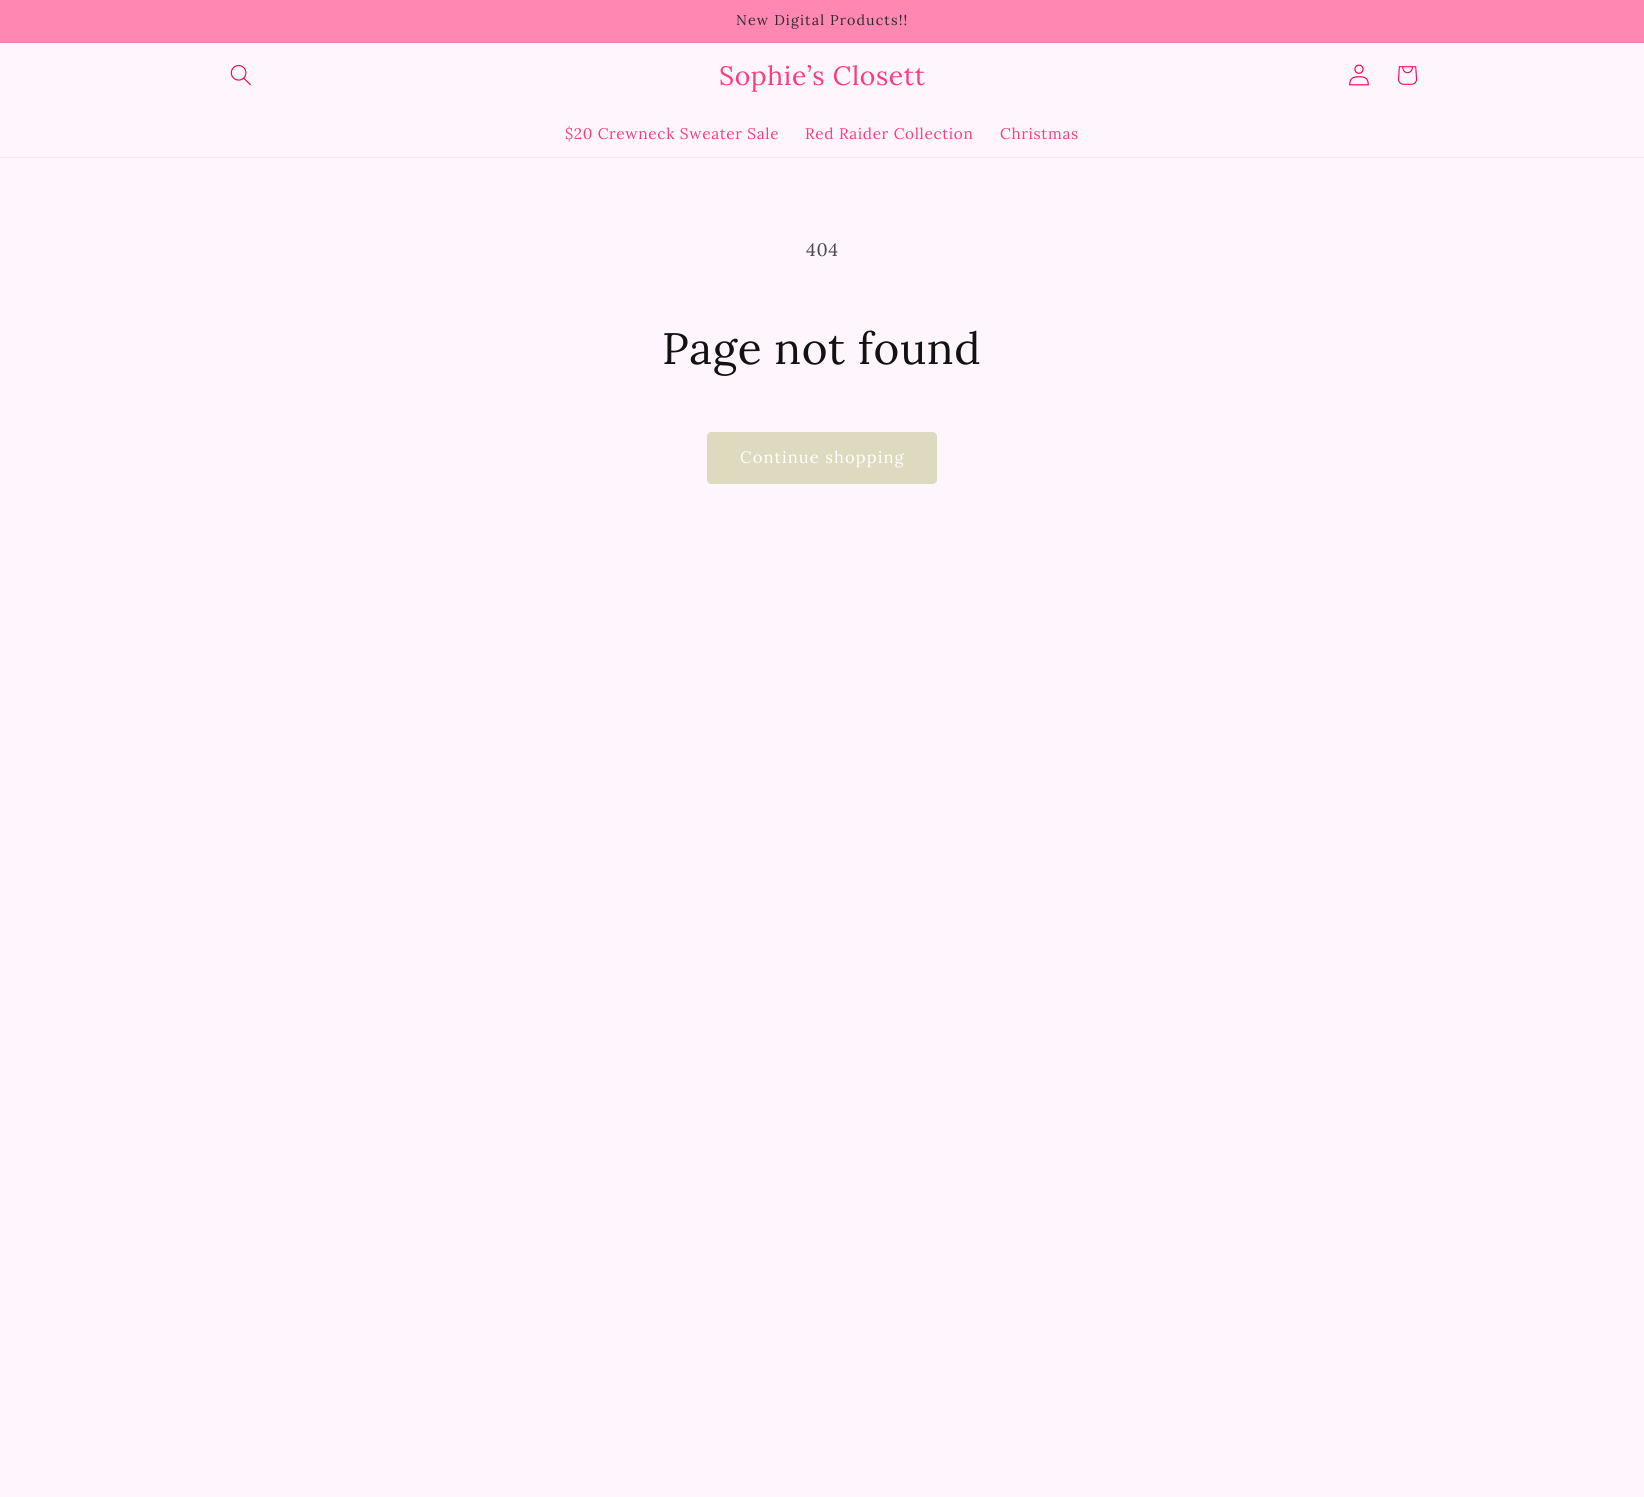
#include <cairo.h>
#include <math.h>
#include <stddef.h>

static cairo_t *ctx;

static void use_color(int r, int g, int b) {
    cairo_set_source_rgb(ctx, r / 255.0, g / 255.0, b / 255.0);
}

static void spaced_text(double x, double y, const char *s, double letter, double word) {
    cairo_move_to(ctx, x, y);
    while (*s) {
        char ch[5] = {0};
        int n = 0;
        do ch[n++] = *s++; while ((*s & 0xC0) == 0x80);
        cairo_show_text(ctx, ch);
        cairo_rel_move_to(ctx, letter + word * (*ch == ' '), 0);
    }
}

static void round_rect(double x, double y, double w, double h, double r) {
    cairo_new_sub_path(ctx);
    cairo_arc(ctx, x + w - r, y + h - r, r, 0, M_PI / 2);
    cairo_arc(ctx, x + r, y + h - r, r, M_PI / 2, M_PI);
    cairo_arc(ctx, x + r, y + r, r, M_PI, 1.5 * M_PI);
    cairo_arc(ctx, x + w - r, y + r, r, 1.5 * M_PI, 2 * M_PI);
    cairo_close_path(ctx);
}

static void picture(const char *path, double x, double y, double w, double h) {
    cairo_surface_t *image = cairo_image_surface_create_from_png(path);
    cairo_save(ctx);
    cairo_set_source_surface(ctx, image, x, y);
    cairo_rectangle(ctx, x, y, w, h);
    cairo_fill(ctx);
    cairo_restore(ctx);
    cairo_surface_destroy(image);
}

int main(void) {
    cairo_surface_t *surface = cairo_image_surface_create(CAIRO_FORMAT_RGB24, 1644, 1497);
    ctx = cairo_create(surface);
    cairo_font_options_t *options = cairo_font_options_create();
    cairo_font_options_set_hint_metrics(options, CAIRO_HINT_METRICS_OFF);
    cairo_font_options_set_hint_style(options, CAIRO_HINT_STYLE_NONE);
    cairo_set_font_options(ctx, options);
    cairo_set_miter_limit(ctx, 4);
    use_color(255, 245, 252);
    cairo_paint(ctx);
    use_color(255, 135, 177);
    cairo_rectangle(ctx, 0, 0, 1644, 42);
    cairo_fill(ctx);
    use_color(238, 128, 166);
    cairo_rectangle(ctx, 0, 42, 1644, 1);
    cairo_fill(ctx);
    cairo_select_font_face(ctx, "Lora", CAIRO_FONT_SLANT_NORMAL, CAIRO_FONT_WEIGHT_NORMAL);
    cairo_set_font_size(ctx, 14.25);
    use_color(46, 45, 45);
    spaced_text(736, 25, "New Digital Products!!", 1.1, 0);
    use_color(255, 225, 239);
    cairo_rectangle(ctx, 0, 157, 1644, 1);
    cairo_fill(ctx);
    picture("img1.png", 230, 64, 21, 22);
    cairo_set_font_size(ctx, 26.5);
    use_color(251, 61, 128);
    spaced_text(719, 85, "Sophie’s Closett", 0.65, 0);
    picture("img2.png", 1349, 64, 20, 22);
    picture("img3.png", 1398, 66, 20, 19);
    cairo_set_font_size(ctx, 15.4);
    spaced_text(565, 139, "$20 Crewneck Sweater Sale", 0.65, 0);
    spaced_text(805, 139, "Red Raider Collection", 0.65, 0);
    spaced_text(1000, 139, "Christmas", 0.65, 0);
    cairo_set_font_size(ctx, 18);
    use_color(77, 75, 77);
    spaced_text(806, 256, "404", 0.65, 0);
    cairo_set_font_size(ctx, 44);
    use_color(18, 18, 18);
    spaced_text(662, 364, "Page not found", 0.65, 0);
    use_color(221, 218, 192);
    round_rect(707, 432, 230, 52, 5);
    cairo_fill(ctx);
    round_rect(707.5, 432.5, 229, 51, 4.5);
    cairo_set_line_width(ctx, 1);
    cairo_stroke(ctx);
    cairo_set_font_size(ctx, 16.5);
    use_color(255, 255, 255);
    spaced_text(740, 463, "Continue shopping", 1.1, 0);
    cairo_surface_write_to_png(surface, "result.png");
    cairo_font_options_destroy(options);
    cairo_destroy(ctx);
    cairo_surface_destroy(surface);
    return 0;
}
